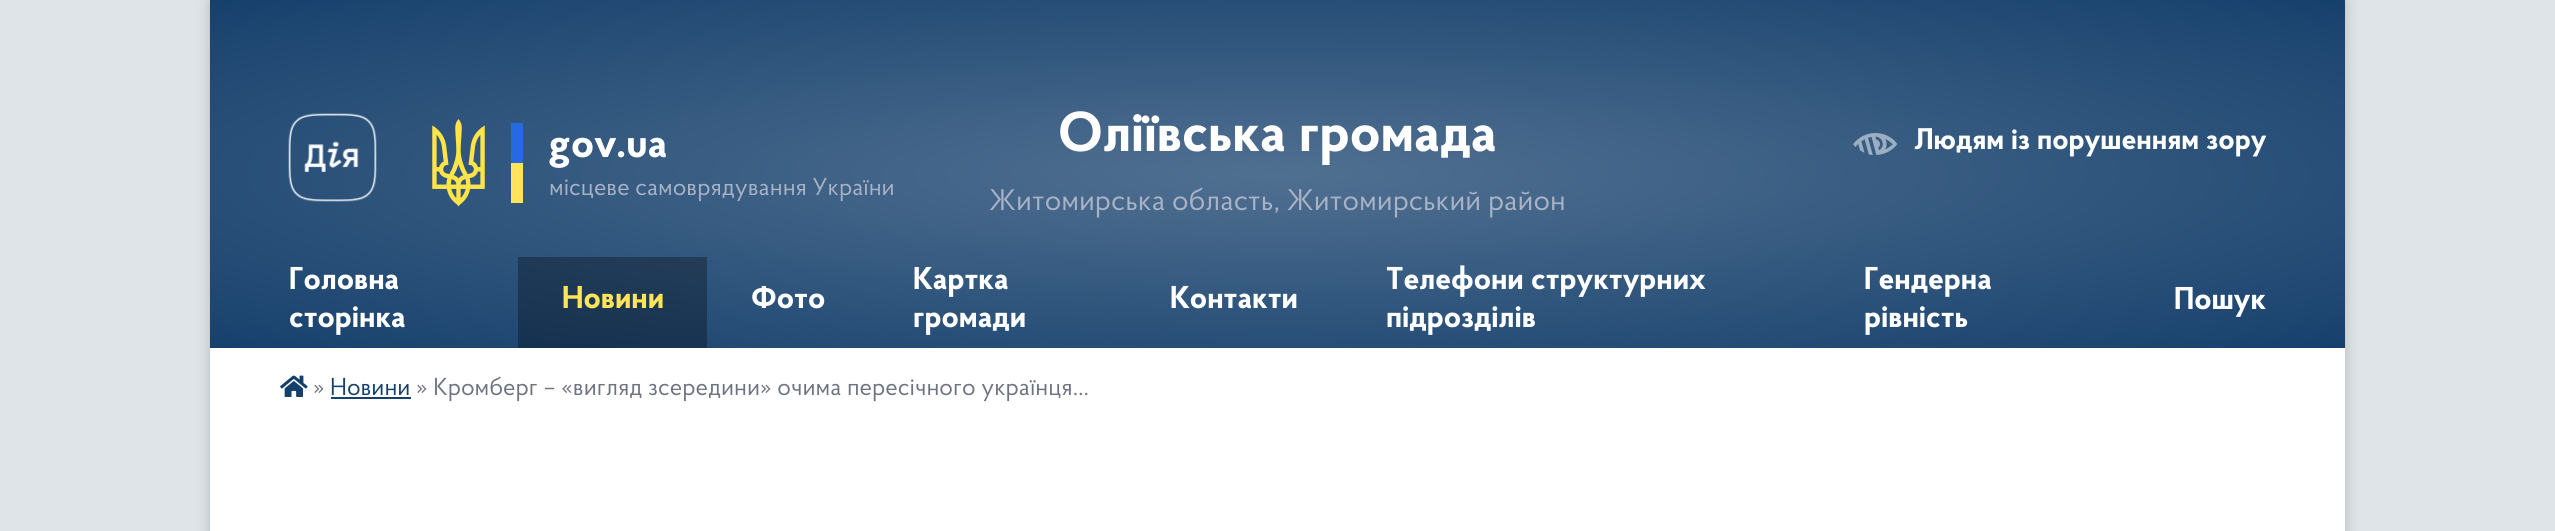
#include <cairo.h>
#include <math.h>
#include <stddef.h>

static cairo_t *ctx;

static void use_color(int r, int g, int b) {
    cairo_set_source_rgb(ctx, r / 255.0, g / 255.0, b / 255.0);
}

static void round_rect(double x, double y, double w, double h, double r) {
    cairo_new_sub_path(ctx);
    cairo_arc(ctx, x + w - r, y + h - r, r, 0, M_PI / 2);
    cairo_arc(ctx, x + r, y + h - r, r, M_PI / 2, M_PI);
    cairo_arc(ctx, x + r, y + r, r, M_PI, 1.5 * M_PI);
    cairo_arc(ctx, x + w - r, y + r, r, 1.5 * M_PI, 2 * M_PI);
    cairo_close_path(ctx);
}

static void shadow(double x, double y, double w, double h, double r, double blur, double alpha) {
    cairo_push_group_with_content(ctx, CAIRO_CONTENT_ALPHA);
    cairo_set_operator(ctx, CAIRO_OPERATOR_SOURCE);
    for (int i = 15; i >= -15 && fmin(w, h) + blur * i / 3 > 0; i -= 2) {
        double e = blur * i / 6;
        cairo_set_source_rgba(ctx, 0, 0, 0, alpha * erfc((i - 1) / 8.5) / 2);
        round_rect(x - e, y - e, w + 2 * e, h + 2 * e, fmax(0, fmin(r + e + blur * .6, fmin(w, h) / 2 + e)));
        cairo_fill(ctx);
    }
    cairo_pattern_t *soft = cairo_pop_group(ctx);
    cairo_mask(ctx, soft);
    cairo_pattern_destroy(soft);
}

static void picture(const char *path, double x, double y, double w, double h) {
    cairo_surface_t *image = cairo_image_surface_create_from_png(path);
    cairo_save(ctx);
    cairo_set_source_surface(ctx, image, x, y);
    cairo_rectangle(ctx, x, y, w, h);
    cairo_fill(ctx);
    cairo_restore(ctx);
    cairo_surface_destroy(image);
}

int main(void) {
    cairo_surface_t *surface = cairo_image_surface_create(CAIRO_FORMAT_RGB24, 2555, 531);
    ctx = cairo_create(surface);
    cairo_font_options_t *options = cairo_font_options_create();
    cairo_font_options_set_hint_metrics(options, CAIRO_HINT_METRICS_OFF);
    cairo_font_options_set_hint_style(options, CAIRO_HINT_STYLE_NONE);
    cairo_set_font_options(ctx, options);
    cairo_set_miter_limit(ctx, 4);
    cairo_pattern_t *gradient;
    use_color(222, 228, 231);
    cairo_paint(ctx);
    use_color(0, 0, 0);
    shadow(210, 2, 2135, 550, 0, 7, 0.2);
    use_color(255, 255, 255);
    cairo_rectangle(ctx, 210, 348, 2135, 183);
    cairo_fill(ctx);
    gradient = cairo_pattern_create_radial(0, 0, 0, 0, 0, 1);
    cairo_pattern_set_matrix(gradient, &(cairo_matrix_t){1.0 / 1510, 0, 0, 1.0 / 246, -1.0 * 1278 / 1510, -1.0 * 174 / 246});
    cairo_pattern_add_color_stop_rgba(gradient, 0, 0.314, 0.439, 0.569, 1);
    cairo_pattern_add_color_stop_rgba(gradient, 1, 0.086, 0.251, 0.424, 1);
    cairo_set_source(ctx, gradient);
    cairo_pattern_destroy(gradient);
    cairo_rectangle(ctx, 210, 0, 2135, 348);
    cairo_fill(ctx);
    gradient = cairo_pattern_create_radial(0, 0, 0, 0, 0, 1);
    cairo_pattern_set_matrix(gradient, &(cairo_matrix_t){1.0 / 1510, 0, 0, 1.0 / 246, -1.0 * 1278 / 1510, -1.0 * 174 / 246});
    cairo_pattern_add_color_stop_rgba(gradient, 0, 0.22, 0.306, 0.4, 1);
    cairo_pattern_add_color_stop_rgba(gradient, 1, 0.059, 0.176, 0.298, 1);
    cairo_set_source(ctx, gradient);
    cairo_pattern_destroy(gradient);
    cairo_rectangle(ctx, 518, 257, 189, 91);
    cairo_fill(ctx);
    picture("img1.png", 288, 113, 89, 89);
    picture("img2.png", 432, 119, 53, 88);
    use_color(38, 105, 227);
    cairo_rectangle(ctx, 511, 123, 12, 40);
    cairo_fill(ctx);
    use_color(255, 227, 88);
    cairo_rectangle(ctx, 511, 163, 12, 40);
    cairo_fill(ctx);
    cairo_select_font_face(ctx, "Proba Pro", CAIRO_FONT_SLANT_NORMAL, CAIRO_FONT_WEIGHT_BOLD);
    cairo_set_font_size(ctx, 42);
    use_color(255, 255, 255);
    cairo_move_to(ctx, 549, 157);
    cairo_show_text(ctx, "gov.ua");
    cairo_select_font_face(ctx, "Proba Pro", CAIRO_FONT_SLANT_NORMAL, CAIRO_FONT_WEIGHT_NORMAL);
    cairo_set_font_size(ctx, 24.5);
    use_color(170, 179, 198);
    cairo_move_to(ctx, 549, 195);
    cairo_show_text(ctx, "місцеве самоврядування України");
    cairo_select_font_face(ctx, "Proba Pro", CAIRO_FONT_SLANT_NORMAL, CAIRO_FONT_WEIGHT_BOLD);
    cairo_set_font_size(ctx, 56);
    use_color(255, 255, 255);
    cairo_move_to(ctx, 1058, 151);
    cairo_show_text(ctx, "Оліївська громада");
    cairo_select_font_face(ctx, "Proba Pro", CAIRO_FONT_SLANT_NORMAL, CAIRO_FONT_WEIGHT_NORMAL);
    cairo_set_font_size(ctx, 29.75);
    use_color(170, 179, 198);
    cairo_move_to(ctx, 989, 210);
    cairo_show_text(ctx, "Житомирська область, Житомирський район");
    picture("img3.png", 1853, 133, 44, 23);
    cairo_select_font_face(ctx, "Proba Pro", CAIRO_FONT_SLANT_NORMAL, CAIRO_FONT_WEIGHT_BOLD);
    use_color(255, 255, 255);
    cairo_move_to(ctx, 1914, 149);
    cairo_show_text(ctx, "Людям із порушенням зору");
    cairo_set_font_size(ctx, 31.5);
    cairo_move_to(ctx, 289, 289);
    cairo_show_text(ctx, "Головна");
    cairo_move_to(ctx, 289, 327);
    cairo_show_text(ctx, "сторінка");
    use_color(255, 227, 88);
    cairo_move_to(ctx, 562, 308);
    cairo_show_text(ctx, "Новини");
    use_color(255, 255, 255);
    cairo_move_to(ctx, 751, 308);
    cairo_show_text(ctx, "Фото");
    cairo_move_to(ctx, 913, 289);
    cairo_show_text(ctx, "Картка");
    cairo_move_to(ctx, 913, 327);
    cairo_show_text(ctx, "громади");
    cairo_move_to(ctx, 1170, 308);
    cairo_show_text(ctx, "Контакти");
    cairo_move_to(ctx, 1386, 289);
    cairo_show_text(ctx, "Телефони структурних");
    cairo_move_to(ctx, 1386, 327);
    cairo_show_text(ctx, "підрозділів");
    cairo_move_to(ctx, 1864, 289);
    cairo_show_text(ctx, "Гендерна");
    cairo_move_to(ctx, 1864, 327);
    cairo_show_text(ctx, "рівність");
    cairo_move_to(ctx, 2174, 309);
    cairo_show_text(ctx, "Пошук");
    picture("img4.png", 280, 375, 28, 22);
    cairo_select_font_face(ctx, "Proba Pro", CAIRO_FONT_SLANT_NORMAL, CAIRO_FONT_WEIGHT_NORMAL);
    cairo_set_font_size(ctx, 24.5);
    use_color(109, 115, 129);
    cairo_move_to(ctx, 313, 395);
    cairo_show_text(ctx, "»");
    use_color(22, 64, 108);
    cairo_move_to(ctx, 330, 395);
    cairo_show_text(ctx, "Новини");
    cairo_rectangle(ctx, 331, 397, 80, 2);
    cairo_fill(ctx);
    use_color(109, 115, 129);
    cairo_move_to(ctx, 416, 395);
    cairo_show_text(ctx, "» Кромберг – «вигляд зсередини» очима пересічного українця…");
    cairo_surface_write_to_png(surface, "result.png");
    cairo_font_options_destroy(options);
    cairo_destroy(ctx);
    cairo_surface_destroy(surface);
    return 0;
}
